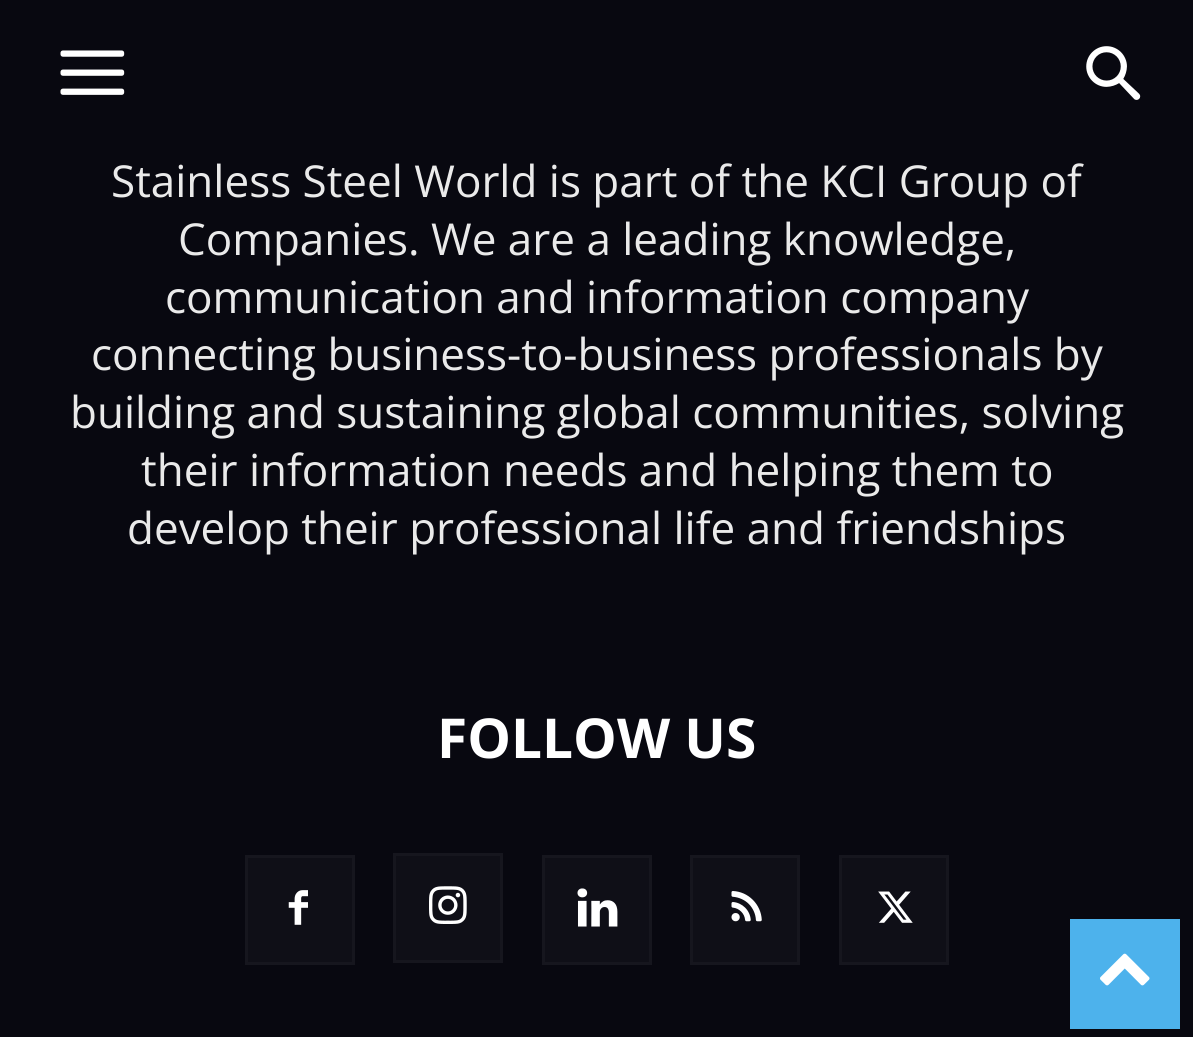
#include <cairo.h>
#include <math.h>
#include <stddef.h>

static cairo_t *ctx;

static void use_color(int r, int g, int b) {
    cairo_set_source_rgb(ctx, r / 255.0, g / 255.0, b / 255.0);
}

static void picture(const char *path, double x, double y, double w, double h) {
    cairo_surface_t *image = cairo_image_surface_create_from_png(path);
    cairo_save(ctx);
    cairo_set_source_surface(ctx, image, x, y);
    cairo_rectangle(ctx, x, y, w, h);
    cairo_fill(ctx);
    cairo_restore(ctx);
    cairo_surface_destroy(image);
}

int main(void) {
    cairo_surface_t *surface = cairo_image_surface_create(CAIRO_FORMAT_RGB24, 1193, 1037);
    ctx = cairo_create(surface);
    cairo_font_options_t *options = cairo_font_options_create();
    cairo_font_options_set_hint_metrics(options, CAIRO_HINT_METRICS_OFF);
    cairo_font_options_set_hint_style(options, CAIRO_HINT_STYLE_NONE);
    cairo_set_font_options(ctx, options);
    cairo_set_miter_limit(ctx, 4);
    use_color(8, 8, 16);
    cairo_paint(ctx);
    picture("img1.png", 60, 50, 65, 45);
    picture("img2.png", 1086, 46, 55, 54);
    cairo_set_source_rgba(ctx, 0, 0, 0, 0.03);
    cairo_rectangle(ctx, 114, 163, 970, 10);
    cairo_fill(ctx);
    cairo_select_font_face(ctx, "Open Sans", CAIRO_FONT_SLANT_NORMAL, CAIRO_FONT_WEIGHT_NORMAL);
    cairo_set_font_size(ctx, 44);
    use_color(234, 234, 234);
    cairo_move_to(ctx, 111, 197);
    cairo_show_text(ctx, "Stainless Steel World is part of the KCI Group of");
    cairo_move_to(ctx, 178, 255);
    cairo_show_text(ctx, "Companies. We are a leading knowledge,");
    cairo_move_to(ctx, 165, 313);
    cairo_show_text(ctx, "communication and information company");
    cairo_move_to(ctx, 91, 370);
    cairo_show_text(ctx, "connecting business-to-business professionals by");
    cairo_move_to(ctx, 70, 428);
    cairo_show_text(ctx, "building and sustaining global communities, solving");
    cairo_move_to(ctx, 141, 486);
    cairo_show_text(ctx, "their information needs and helping them to");
    cairo_move_to(ctx, 127, 544);
    cairo_show_text(ctx, "develop their professional life and friendships");
    cairo_select_font_face(ctx, "Open Sans", CAIRO_FONT_SLANT_NORMAL, CAIRO_FONT_WEIGHT_BOLD);
    cairo_set_font_size(ctx, 55);
    use_color(255, 255, 255);
    cairo_move_to(ctx, 437, 758);
    cairo_show_text(ctx, "FOLLOW US");
    use_color(15, 15, 23);
    cairo_rectangle(ctx, 248, 858, 104, 104);
    cairo_fill(ctx);
    picture("img3.png", 288, 890, 20, 35);
    cairo_rectangle(ctx, 246.5, 856.5, 107, 107);
    use_color(22, 22, 30);
    cairo_set_line_width(ctx, 3);
    cairo_stroke(ctx);
    use_color(15, 15, 23);
    cairo_rectangle(ctx, 396, 856, 104, 104);
    cairo_fill(ctx);
    picture("img4.png", 429, 886, 38, 38);
    cairo_rectangle(ctx, 394.5, 854.5, 107, 107);
    use_color(22, 22, 30);
    cairo_stroke(ctx);
    use_color(15, 15, 23);
    cairo_rectangle(ctx, 545, 858, 104, 104);
    cairo_fill(ctx);
    picture("img5.png", 577, 888, 41, 39);
    cairo_rectangle(ctx, 543.5, 856.5, 107, 107);
    use_color(22, 22, 30);
    cairo_stroke(ctx);
    use_color(15, 15, 23);
    cairo_rectangle(ctx, 693, 858, 104, 104);
    cairo_fill(ctx);
    picture("img6.png", 731, 891, 31, 31);
    cairo_rectangle(ctx, 691.5, 856.5, 107, 107);
    use_color(22, 22, 30);
    cairo_stroke(ctx);
    use_color(15, 15, 23);
    cairo_rectangle(ctx, 842, 858, 104, 104);
    cairo_fill(ctx);
    picture("img7.png", 878, 891, 35, 32);
    cairo_rectangle(ctx, 840.5, 856.5, 107, 107);
    use_color(22, 22, 30);
    cairo_stroke(ctx);
    use_color(77, 178, 236);
    cairo_rectangle(ctx, 1070, 919, 110, 110);
    cairo_fill(ctx);
    picture("img8.png", 1100, 953, 50, 33);
    cairo_surface_write_to_png(surface, "result.png");
    cairo_font_options_destroy(options);
    cairo_destroy(ctx);
    cairo_surface_destroy(surface);
    return 0;
}
